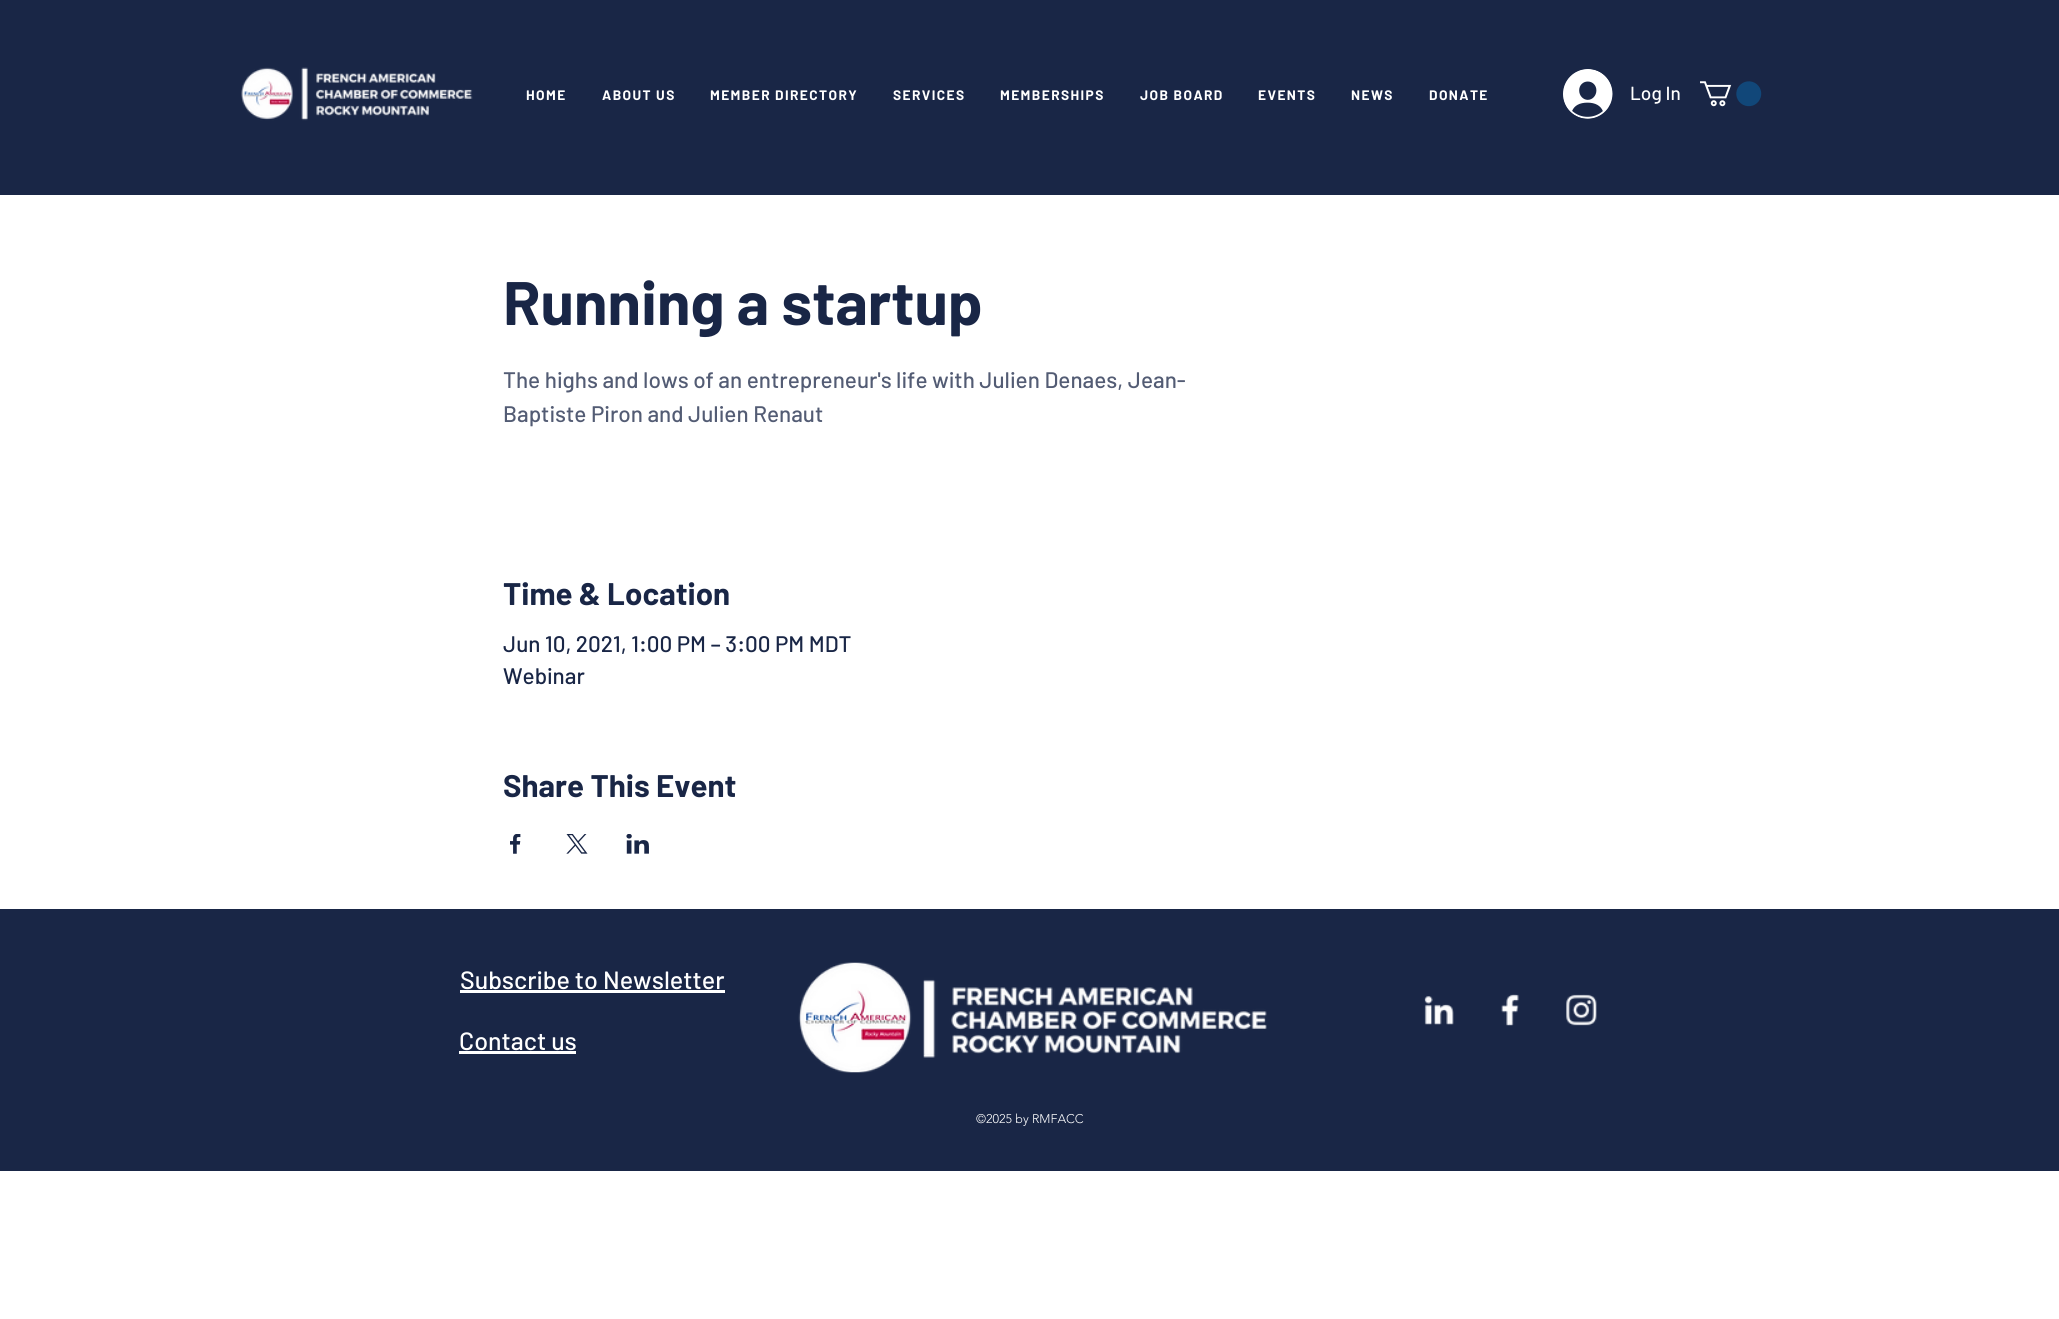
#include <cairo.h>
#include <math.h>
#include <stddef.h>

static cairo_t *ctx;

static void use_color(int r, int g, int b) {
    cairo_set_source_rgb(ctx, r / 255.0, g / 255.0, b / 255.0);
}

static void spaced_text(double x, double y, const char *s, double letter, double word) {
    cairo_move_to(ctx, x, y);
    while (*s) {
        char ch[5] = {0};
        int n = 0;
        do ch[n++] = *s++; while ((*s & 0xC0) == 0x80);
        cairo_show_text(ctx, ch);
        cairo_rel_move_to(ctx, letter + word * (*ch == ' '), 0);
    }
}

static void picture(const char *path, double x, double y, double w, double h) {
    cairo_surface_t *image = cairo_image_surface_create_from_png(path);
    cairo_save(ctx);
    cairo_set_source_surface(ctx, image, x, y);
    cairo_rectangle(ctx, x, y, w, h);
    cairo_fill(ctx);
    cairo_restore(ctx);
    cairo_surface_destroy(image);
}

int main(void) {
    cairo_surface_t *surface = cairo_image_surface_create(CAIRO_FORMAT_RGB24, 2059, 1319);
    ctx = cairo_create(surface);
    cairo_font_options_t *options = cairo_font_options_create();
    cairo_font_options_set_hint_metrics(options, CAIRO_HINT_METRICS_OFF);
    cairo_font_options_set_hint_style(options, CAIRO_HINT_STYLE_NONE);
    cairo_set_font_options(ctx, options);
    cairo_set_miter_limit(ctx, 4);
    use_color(255, 255, 255);
    cairo_paint(ctx);
    use_color(25, 38, 70);
    cairo_rectangle(ctx, 0, 0, 2059, 195);
    cairo_fill(ctx);
    picture("img1.png", 241, 67, 232, 54);
    cairo_select_font_face(ctx, "Barlow", CAIRO_FONT_SLANT_NORMAL, CAIRO_FONT_WEIGHT_BOLD);
    cairo_set_font_size(ctx, 13.75);
    use_color(255, 255, 255);
    spaced_text(526, 100, "HOME", 1.4, 0);
    spaced_text(602, 100, "ABOUT US", 1.4, 0);
    spaced_text(710, 100, "MEMBER DIRECTORY", 1.4, 0);
    spaced_text(893, 100, "SERVICES", 1.4, 0);
    spaced_text(1000, 100, "MEMBERSHIPS", 1.4, 0);
    spaced_text(1140, 100, "JOB BOARD", 1.4, 0);
    spaced_text(1258, 100, "EVENTS", 1.4, 0);
    spaced_text(1351, 100, "NEWS", 1.4, 0);
    spaced_text(1429, 100, "DONATE", 1.4, 0);
    picture("img2.png", 1563, 69, 50, 50);
    cairo_select_font_face(ctx, "Barlow Medium", CAIRO_FONT_SLANT_NORMAL, CAIRO_FONT_WEIGHT_NORMAL);
    cairo_set_font_size(ctx, 19);
    cairo_move_to(ctx, 1630, 100);
    cairo_show_text(ctx, "Log In");
    picture("img3.png", 1700, 81, 62, 26);
    cairo_select_font_face(ctx, "Barlow", CAIRO_FONT_SLANT_NORMAL, CAIRO_FONT_WEIGHT_BOLD);
    cairo_set_font_size(ctx, 61.25);
    use_color(25, 38, 70);
    cairo_move_to(ctx, 503, 325);
    cairo_show_text(ctx, "Running a startup");
    cairo_select_font_face(ctx, "Barlow Medium", CAIRO_FONT_SLANT_NORMAL, CAIRO_FONT_WEIGHT_NORMAL);
    cairo_set_font_size(ctx, 22.5);
    use_color(83, 92, 116);
    cairo_move_to(ctx, 503, 388);
    cairo_show_text(ctx, "The highs and lows of an entrepreneur's life with Julien Denaes, Jean-");
    cairo_move_to(ctx, 503, 422);
    cairo_show_text(ctx, "Baptiste Piron and Julien Renaut");
    cairo_select_font_face(ctx, "Barlow", CAIRO_FONT_SLANT_NORMAL, CAIRO_FONT_WEIGHT_BOLD);
    cairo_set_font_size(ctx, 31.25);
    use_color(25, 38, 70);
    cairo_move_to(ctx, 503, 605);
    cairo_show_text(ctx, "Time & Location");
    cairo_select_font_face(ctx, "Barlow Medium", CAIRO_FONT_SLANT_NORMAL, CAIRO_FONT_WEIGHT_NORMAL);
    cairo_set_font_size(ctx, 22.5);
    cairo_move_to(ctx, 503, 652);
    cairo_show_text(ctx, "Jun 10, 2021, 1:00 PM – 3:00 PM MDT");
    cairo_move_to(ctx, 503, 684);
    cairo_show_text(ctx, "Webinar");
    cairo_select_font_face(ctx, "Barlow", CAIRO_FONT_SLANT_NORMAL, CAIRO_FONT_WEIGHT_BOLD);
    cairo_set_font_size(ctx, 31.25);
    cairo_move_to(ctx, 503, 797);
    cairo_show_text(ctx, "Share This Event");
    picture("img4.png", 510, 834, 11, 20);
    picture("img5.png", 566, 834, 22, 20);
    picture("img6.png", 626, 834, 23, 20);
    cairo_rectangle(ctx, 0, 909, 2059, 262);
    cairo_fill(ctx);
    cairo_select_font_face(ctx, "Barlow Medium", CAIRO_FONT_SLANT_NORMAL, CAIRO_FONT_WEIGHT_NORMAL);
    cairo_set_font_size(ctx, 25);
    use_color(255, 255, 255);
    cairo_move_to(ctx, 460, 989);
    cairo_show_text(ctx, "Subscribe to Newsletter");
    cairo_rectangle(ctx, 460, 990, 265, 3);
    cairo_fill(ctx);
    picture("img7.png", 798, 962, 469, 111);
    picture("img8.png", 1424, 996, 30, 29);
    picture("img9.png", 1501, 994, 18, 32);
    picture("img10.png", 1566, 994, 31, 32);
    cairo_move_to(ctx, 459, 1050);
    cairo_show_text(ctx, "Contact us");
    cairo_rectangle(ctx, 459, 1051, 117, 3);
    cairo_fill(ctx);
    cairo_select_font_face(ctx, "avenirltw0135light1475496 Light", CAIRO_FONT_SLANT_NORMAL, CAIRO_FONT_WEIGHT_NORMAL);
    cairo_set_font_size(ctx, 12.5);
    cairo_move_to(ctx, 976, 1123);
    cairo_show_text(ctx, "©2025 by RMFACC");
    cairo_surface_write_to_png(surface, "result.png");
    cairo_font_options_destroy(options);
    cairo_destroy(ctx);
    cairo_surface_destroy(surface);
    return 0;
}
